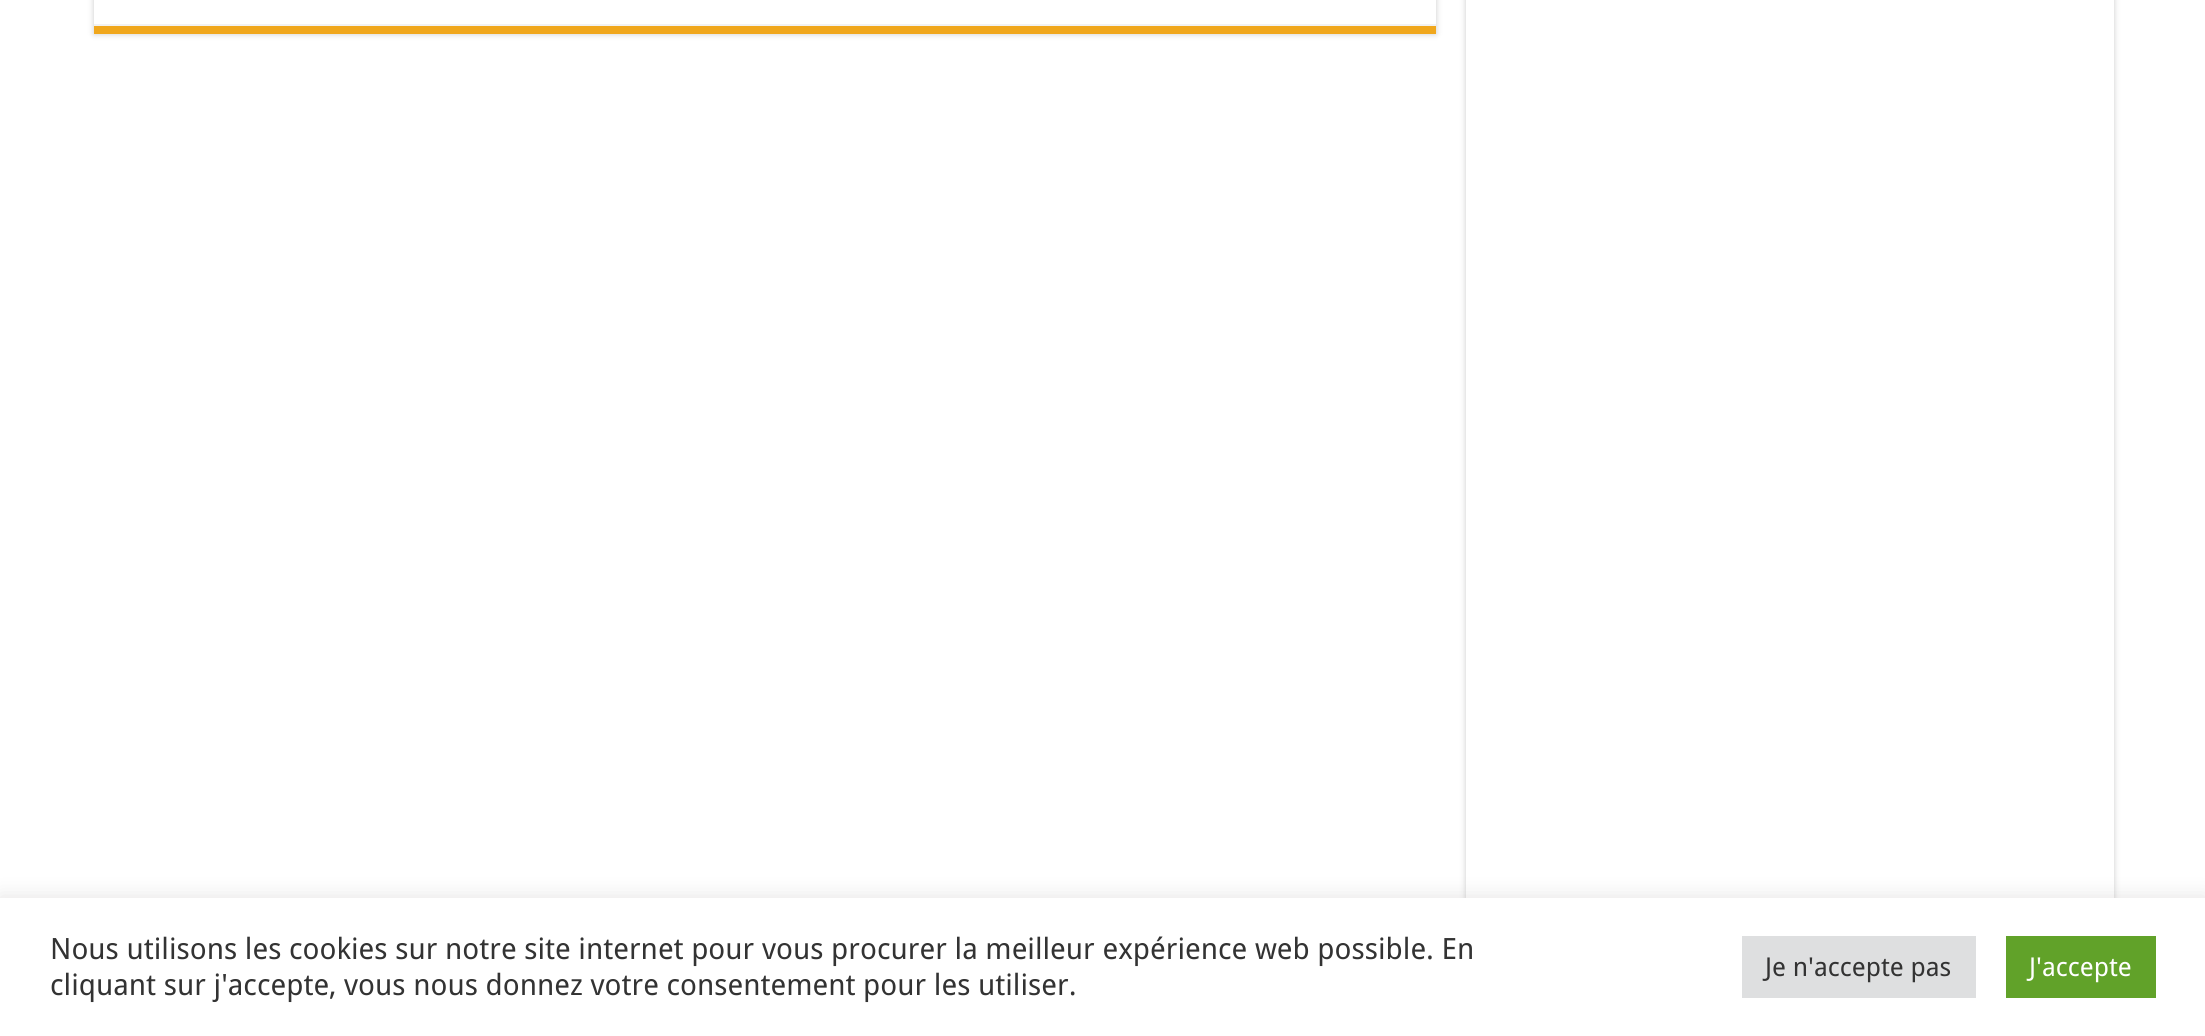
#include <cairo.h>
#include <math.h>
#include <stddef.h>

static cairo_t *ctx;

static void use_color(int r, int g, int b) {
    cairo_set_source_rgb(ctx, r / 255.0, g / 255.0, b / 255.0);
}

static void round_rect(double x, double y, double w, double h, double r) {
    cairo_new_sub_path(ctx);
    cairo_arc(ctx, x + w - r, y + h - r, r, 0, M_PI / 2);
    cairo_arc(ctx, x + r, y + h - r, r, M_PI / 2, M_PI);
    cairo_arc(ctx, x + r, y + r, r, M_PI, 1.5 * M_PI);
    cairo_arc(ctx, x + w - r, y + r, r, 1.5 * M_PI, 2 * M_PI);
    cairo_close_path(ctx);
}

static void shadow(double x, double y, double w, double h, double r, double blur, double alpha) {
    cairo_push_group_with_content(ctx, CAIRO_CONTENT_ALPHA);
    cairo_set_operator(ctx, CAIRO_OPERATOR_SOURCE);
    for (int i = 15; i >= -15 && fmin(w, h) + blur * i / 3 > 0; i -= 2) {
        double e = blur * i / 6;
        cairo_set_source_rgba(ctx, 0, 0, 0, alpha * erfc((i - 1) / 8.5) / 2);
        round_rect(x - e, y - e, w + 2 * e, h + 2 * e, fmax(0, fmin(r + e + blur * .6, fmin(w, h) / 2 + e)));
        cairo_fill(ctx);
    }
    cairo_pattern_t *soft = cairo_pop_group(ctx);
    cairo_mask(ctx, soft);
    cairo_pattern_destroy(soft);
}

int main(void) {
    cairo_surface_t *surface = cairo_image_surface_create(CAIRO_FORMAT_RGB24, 2205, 1036);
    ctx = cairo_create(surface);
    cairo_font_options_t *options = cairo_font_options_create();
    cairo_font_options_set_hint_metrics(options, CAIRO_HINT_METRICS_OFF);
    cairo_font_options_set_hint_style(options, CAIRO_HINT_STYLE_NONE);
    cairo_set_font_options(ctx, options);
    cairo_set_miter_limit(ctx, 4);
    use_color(255, 255, 255);
    cairo_paint(ctx);
    cairo_save(ctx);
    cairo_set_fill_rule(ctx, CAIRO_FILL_RULE_EVEN_ODD);
    cairo_new_path(ctx);
    cairo_move_to(ctx, 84, 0);
    cairo_line_to(ctx, 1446, 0);
    cairo_line_to(ctx, 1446, 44);
    cairo_line_to(ctx, 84, 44);
    cairo_close_path(ctx);
    cairo_move_to(ctx, 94, -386);
    cairo_line_to(ctx, 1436, -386);
    cairo_line_to(ctx, 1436, 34);
    cairo_line_to(ctx, 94, 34);
    cairo_close_path(ctx);
    cairo_clip(ctx);
    use_color(202, 202, 202);
    shadow(94, -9, 1342, 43, 0, 3, 1);
    cairo_restore(ctx);
    use_color(240, 167, 28);
    cairo_rectangle(ctx, 94, 26, 1342, 8);
    cairo_fill(ctx);
    use_color(242, 242, 242);
    cairo_rectangle(ctx, 94, 24, 1342, 2);
    cairo_fill(ctx);
    cairo_save(ctx);
    cairo_set_fill_rule(ctx, CAIRO_FILL_RULE_EVEN_ODD);
    cairo_new_path(ctx);
    cairo_move_to(ctx, 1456, 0);
    cairo_line_to(ctx, 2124, 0);
    cairo_line_to(ctx, 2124, 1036);
    cairo_line_to(ctx, 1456, 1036);
    cairo_close_path(ctx);
    cairo_move_to(ctx, 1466, -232);
    cairo_line_to(ctx, 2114, -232);
    cairo_line_to(ctx, 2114, 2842);
    cairo_line_to(ctx, 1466, 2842);
    cairo_close_path(ctx);
    cairo_clip(ctx);
    use_color(202, 202, 202);
    shadow(1466, -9, 648, 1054, 0, 3, 1);
    cairo_restore(ctx);
    use_color(172, 171, 171);
    shadow(0, 896, 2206, 138, 0, 10, 0.3);
    use_color(255, 255, 255);
    cairo_rectangle(ctx, 0, 898, 2205, 138);
    cairo_fill(ctx);
    cairo_select_font_face(ctx, "Droid Sans", CAIRO_FONT_SLANT_NORMAL, CAIRO_FONT_WEIGHT_NORMAL);
    cairo_set_font_size(ctx, 29.35);
    use_color(51, 51, 51);
    cairo_move_to(ctx, 50, 959);
    cairo_show_text(ctx, "Nous utilisons les cookies sur notre site internet pour vous procurer la meilleur expérience web possible. En");
    cairo_move_to(ctx, 50, 995);
    cairo_show_text(ctx, "cliquant sur j'accepte, vous nous donnez votre consentement pour les utiliser.");
    use_color(222, 223, 224);
    cairo_rectangle(ctx, 1742, 936, 234, 62);
    cairo_fill(ctx);
    cairo_set_font_size(ctx, 26);
    use_color(51, 51, 51);
    cairo_move_to(ctx, 1765, 976);
    cairo_show_text(ctx, "Je n'accepte pas");
    use_color(97, 162, 41);
    cairo_rectangle(ctx, 2006, 936, 150, 62);
    cairo_fill(ctx);
    use_color(255, 255, 255);
    cairo_move_to(ctx, 2029, 976);
    cairo_show_text(ctx, "J'accepte");
    cairo_surface_write_to_png(surface, "result.png");
    cairo_font_options_destroy(options);
    cairo_destroy(ctx);
    cairo_surface_destroy(surface);
    return 0;
}
